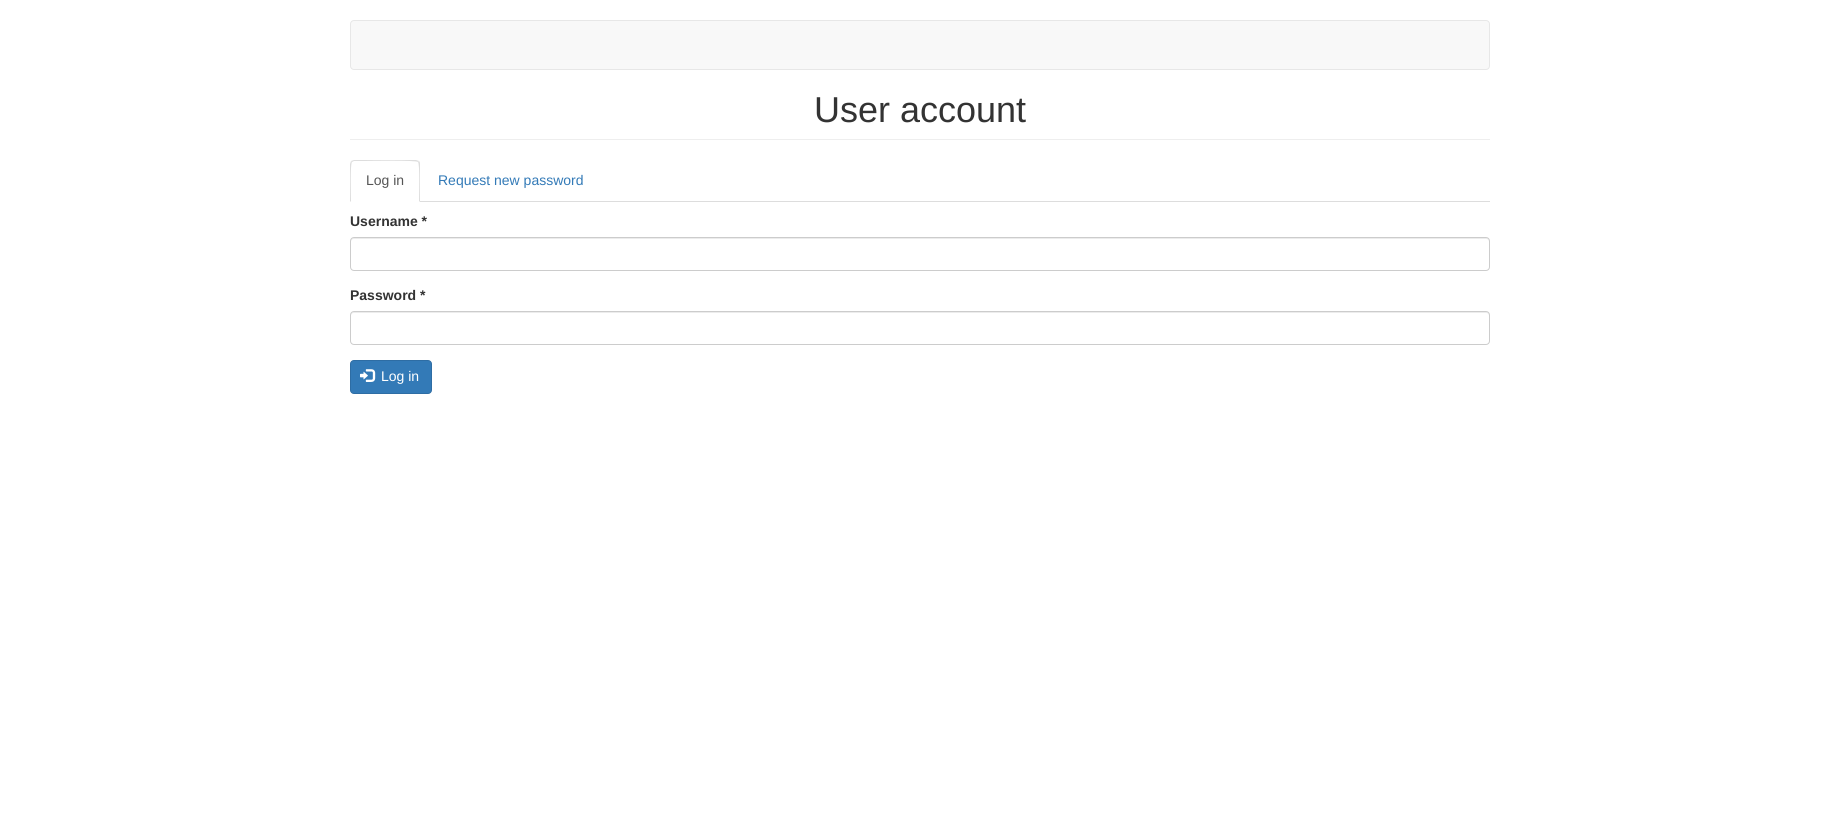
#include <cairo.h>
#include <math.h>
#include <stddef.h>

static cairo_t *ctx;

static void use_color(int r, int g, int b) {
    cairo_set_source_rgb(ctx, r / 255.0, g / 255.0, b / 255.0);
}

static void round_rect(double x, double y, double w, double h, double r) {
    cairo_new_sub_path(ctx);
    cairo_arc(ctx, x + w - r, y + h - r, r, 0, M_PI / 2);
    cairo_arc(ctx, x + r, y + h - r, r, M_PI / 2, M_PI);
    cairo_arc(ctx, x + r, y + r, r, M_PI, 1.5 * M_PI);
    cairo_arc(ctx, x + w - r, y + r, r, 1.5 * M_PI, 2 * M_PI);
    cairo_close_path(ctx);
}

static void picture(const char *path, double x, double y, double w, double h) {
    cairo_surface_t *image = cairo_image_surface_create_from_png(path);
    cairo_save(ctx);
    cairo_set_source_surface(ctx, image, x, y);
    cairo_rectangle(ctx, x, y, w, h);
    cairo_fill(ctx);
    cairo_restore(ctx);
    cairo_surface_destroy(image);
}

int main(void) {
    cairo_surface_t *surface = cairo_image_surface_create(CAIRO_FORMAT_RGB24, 1840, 829);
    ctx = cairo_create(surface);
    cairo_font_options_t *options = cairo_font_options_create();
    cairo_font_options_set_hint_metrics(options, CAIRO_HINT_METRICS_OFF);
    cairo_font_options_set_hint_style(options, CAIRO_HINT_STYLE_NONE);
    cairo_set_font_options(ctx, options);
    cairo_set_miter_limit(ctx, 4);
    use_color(255, 255, 255);
    cairo_paint(ctx);
    use_color(248, 248, 248);
    round_rect(350.5, 20.5, 1139, 49, 3.5);
    cairo_fill_preserve(ctx);
    use_color(231, 231, 231);
    cairo_set_line_width(ctx, 1);
    cairo_stroke(ctx);
    use_color(238, 238, 238);
    cairo_rectangle(ctx, 350, 139, 1140, 1);
    cairo_fill(ctx);
    cairo_select_font_face(ctx, "Liberation Sans", CAIRO_FONT_SLANT_NORMAL, CAIRO_FONT_WEIGHT_NORMAL);
    cairo_set_font_size(ctx, 36);
    use_color(51, 51, 51);
    cairo_move_to(ctx, 814, 122);
    cairo_show_text(ctx, "User account");
    use_color(221, 221, 221);
    cairo_rectangle(ctx, 420, 201, 1070, 1);
    cairo_fill(ctx);
    cairo_new_path(ctx);
    cairo_move_to(ctx, 354, 160);
    cairo_line_to(ctx, 351, 161);
    cairo_line_to(ctx, 352, 162);
    cairo_line_to(ctx, 354, 161);
    cairo_line_to(ctx, 364, 161);
    cairo_curve_to(ctx, 370, 161, 416, 160, 418, 162);
    cairo_line_to(ctx, 419, 161);
    cairo_line_to(ctx, 416, 160);
    cairo_close_path(ctx);
    cairo_fill(ctx);
    cairo_new_path(ctx);
    cairo_move_to(ctx, 420, 202);
    cairo_line_to(ctx, 420, 164);
    cairo_curve_to(ctx, 420, 163, 420, 162, 419, 161);
    cairo_line_to(ctx, 418, 162);
    cairo_curve_to(ctx, 420, 164, 419, 196, 419, 201);
    cairo_close_path(ctx);
    cairo_fill(ctx);
    cairo_new_path(ctx);
    cairo_move_to(ctx, 350, 202);
    cairo_line_to(ctx, 351, 201);
    cairo_curve_to(ctx, 351, 196, 350, 164, 352, 162);
    cairo_line_to(ctx, 351, 161);
    cairo_line_to(ctx, 350, 164);
    cairo_close_path(ctx);
    cairo_fill(ctx);
    cairo_set_font_size(ctx, 14);
    use_color(85, 85, 85);
    cairo_move_to(ctx, 366, 185);
    cairo_show_text(ctx, "Log in");
    use_color(51, 122, 183);
    cairo_move_to(ctx, 438, 185);
    cairo_show_text(ctx, "Request new password");
    cairo_select_font_face(ctx, "Liberation Sans", CAIRO_FONT_SLANT_NORMAL, CAIRO_FONT_WEIGHT_BOLD);
    use_color(51, 51, 51);
    cairo_move_to(ctx, 350, 226);
    cairo_show_text(ctx, "Username *");
    use_color(236, 236, 236);
    cairo_new_path(ctx);
    cairo_move_to(ctx, 354, 239);
    cairo_line_to(ctx, 1486, 239);
    cairo_curve_to(ctx, 1488, 239, 1489, 240, 1489, 242);
    cairo_line_to(ctx, 1489, 241);
    cairo_curve_to(ctx, 1489, 239, 1488, 238, 1486, 238);
    cairo_line_to(ctx, 354, 238);
    cairo_curve_to(ctx, 352, 238, 351, 239, 351, 241);
    cairo_line_to(ctx, 351, 242);
    cairo_curve_to(ctx, 351, 240, 352, 239, 354, 239);
    cairo_close_path(ctx);
    cairo_fill(ctx);
    round_rect(350.5, 237.5, 1139, 33, 3.5);
    use_color(204, 204, 204);
    cairo_stroke(ctx);
    use_color(51, 51, 51);
    cairo_move_to(ctx, 350, 300);
    cairo_show_text(ctx, "Password *");
    use_color(236, 236, 236);
    cairo_new_path(ctx);
    cairo_move_to(ctx, 354, 313);
    cairo_line_to(ctx, 1486, 313);
    cairo_curve_to(ctx, 1488, 313, 1489, 314, 1489, 316);
    cairo_line_to(ctx, 1489, 315);
    cairo_curve_to(ctx, 1489, 313, 1488, 312, 1486, 312);
    cairo_line_to(ctx, 354, 312);
    cairo_curve_to(ctx, 352, 312, 351, 313, 351, 315);
    cairo_line_to(ctx, 351, 316);
    cairo_curve_to(ctx, 351, 314, 352, 313, 354, 313);
    cairo_close_path(ctx);
    cairo_fill(ctx);
    round_rect(350.5, 311.5, 1139, 33, 3.5);
    use_color(204, 204, 204);
    cairo_stroke(ctx);
    use_color(51, 122, 183);
    round_rect(350.5, 360.5, 81, 33, 3.5);
    cairo_fill_preserve(ctx);
    use_color(46, 109, 164);
    cairo_stroke(ctx);
    picture("img1.png", 360, 369, 16, 13);
    cairo_select_font_face(ctx, "Liberation Sans", CAIRO_FONT_SLANT_NORMAL, CAIRO_FONT_WEIGHT_NORMAL);
    use_color(255, 255, 255);
    cairo_move_to(ctx, 381, 381);
    cairo_show_text(ctx, "Log in");
    cairo_surface_write_to_png(surface, "result.png");
    cairo_font_options_destroy(options);
    cairo_destroy(ctx);
    cairo_surface_destroy(surface);
    return 0;
}
